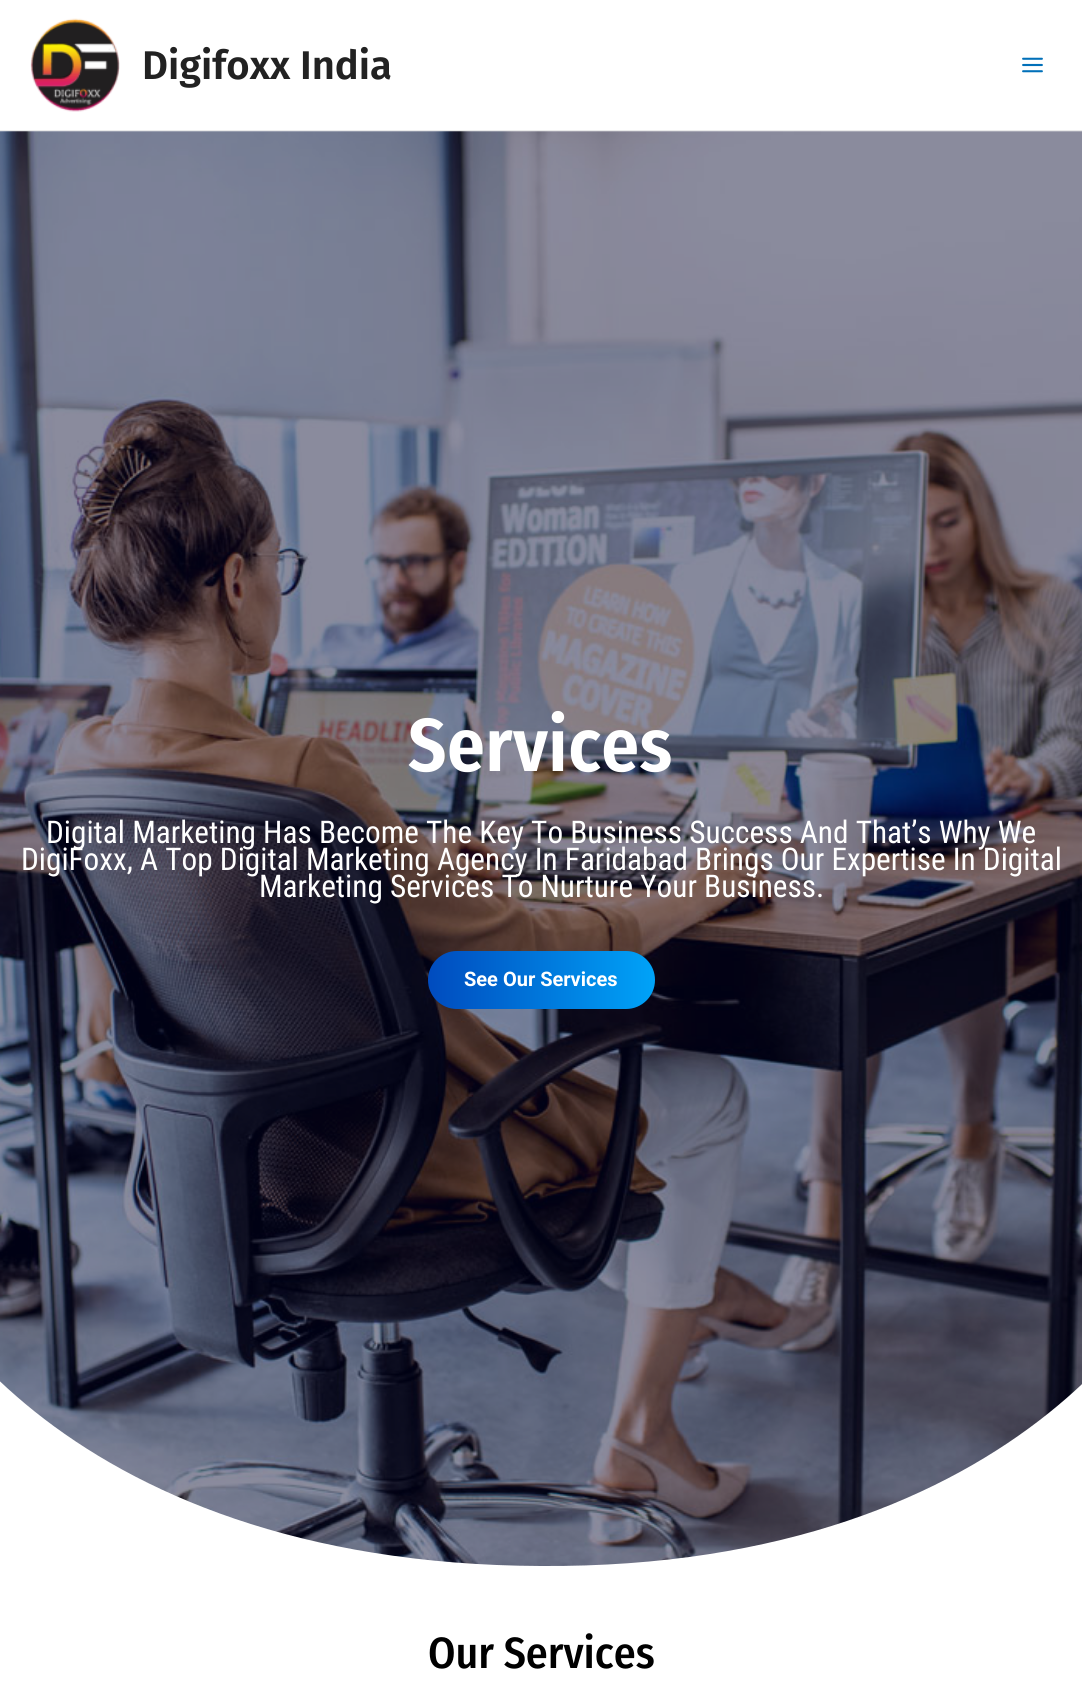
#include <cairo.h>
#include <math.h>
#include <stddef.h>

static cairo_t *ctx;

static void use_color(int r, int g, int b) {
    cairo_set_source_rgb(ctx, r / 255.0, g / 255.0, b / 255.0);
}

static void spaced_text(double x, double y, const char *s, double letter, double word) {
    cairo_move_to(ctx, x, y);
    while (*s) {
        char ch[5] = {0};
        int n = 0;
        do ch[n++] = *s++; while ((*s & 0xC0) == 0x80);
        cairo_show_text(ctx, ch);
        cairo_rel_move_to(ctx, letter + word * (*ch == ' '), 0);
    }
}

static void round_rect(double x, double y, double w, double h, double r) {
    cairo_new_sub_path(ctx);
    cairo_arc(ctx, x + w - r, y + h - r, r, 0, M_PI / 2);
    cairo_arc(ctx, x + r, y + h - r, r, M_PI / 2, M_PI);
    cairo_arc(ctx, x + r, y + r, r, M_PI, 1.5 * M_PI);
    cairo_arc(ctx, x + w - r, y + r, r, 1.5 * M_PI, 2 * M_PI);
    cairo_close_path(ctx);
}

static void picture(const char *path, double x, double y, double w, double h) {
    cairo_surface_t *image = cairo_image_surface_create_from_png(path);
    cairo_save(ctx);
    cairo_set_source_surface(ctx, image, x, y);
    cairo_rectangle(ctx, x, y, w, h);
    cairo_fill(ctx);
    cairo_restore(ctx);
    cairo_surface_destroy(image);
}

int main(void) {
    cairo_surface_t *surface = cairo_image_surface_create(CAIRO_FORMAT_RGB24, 1082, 1699);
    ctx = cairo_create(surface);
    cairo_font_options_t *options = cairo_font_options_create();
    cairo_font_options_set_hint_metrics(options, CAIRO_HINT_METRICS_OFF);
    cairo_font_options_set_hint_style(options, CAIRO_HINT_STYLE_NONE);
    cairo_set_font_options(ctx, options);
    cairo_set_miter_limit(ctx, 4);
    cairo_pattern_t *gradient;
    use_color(255, 255, 255);
    cairo_paint(ctx);
    use_color(234, 234, 234);
    cairo_rectangle(ctx, 0, 130, 1082, 1);
    cairo_fill(ctx);
    picture("img1.png", 30, 18, 90, 94);
    cairo_select_font_face(ctx, "Fira Sans SemiBold", CAIRO_FONT_SLANT_NORMAL, CAIRO_FONT_WEIGHT_NORMAL);
    cairo_set_font_size(ctx, 40);
    use_color(34, 34, 34);
    cairo_move_to(ctx, 142, 79);
    cairo_show_text(ctx, "Digifoxx India");
    picture("img2.png", 1022, 57, 21, 16);
    picture("img3.png", 0, 131, 1082, 1435);
    cairo_select_font_face(ctx, "Fira Sans Condensed SemiBold", CAIRO_FONT_SLANT_NORMAL, CAIRO_FONT_WEIGHT_NORMAL);
    cairo_set_font_size(ctx, 75);
    use_color(255, 255, 255);
    spaced_text(408, 771, "Services", 0.5, 0);
    cairo_select_font_face(ctx, "Roboto Condensed", CAIRO_FONT_SLANT_NORMAL, CAIRO_FONT_WEIGHT_NORMAL);
    cairo_set_font_size(ctx, 31.25);
    cairo_move_to(ctx, 46, 843);
    cairo_show_text(ctx, "Digital Marketing Has Become The Key To Business Success And That’s Why We");
    cairo_move_to(ctx, 21, 870);
    cairo_show_text(ctx, "DigiFoxx, A Top Digital Marketing Agency In Faridabad Brings Our Expertise In Digital");
    cairo_move_to(ctx, 259, 897);
    cairo_show_text(ctx, "Marketing Services To Nurture Your Business.");
    gradient = cairo_pattern_create_linear(428, 980, 655, 980);
    cairo_pattern_add_color_stop_rgba(gradient, 0, 0, 0.294, 0.745, 1);
    cairo_pattern_add_color_stop_rgba(gradient, 1, 0, 0.639, 0.973, 1);
    cairo_set_source(ctx, gradient);
    cairo_pattern_destroy(gradient);
    round_rect(428, 951, 227, 58, 29);
    cairo_fill(ctx);
    cairo_select_font_face(ctx, "Roboto", CAIRO_FONT_SLANT_NORMAL, CAIRO_FONT_WEIGHT_BOLD);
    cairo_set_font_size(ctx, 20);
    use_color(255, 255, 255);
    cairo_move_to(ctx, 464, 986);
    cairo_show_text(ctx, "See Our Services");
    cairo_new_path(ctx);
    cairo_move_to(ctx, 541, 1566);
    cairo_curve_to(ctx, 56, 1564, -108, 1277, -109, 1202);
    cairo_line_to(ctx, -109, 1578);
    cairo_line_to(ctx, 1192, 1578);
    cairo_line_to(ctx, 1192, 1206);
    cairo_curve_to(ctx, 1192, 1275, 1027, 1569, 541, 1566);
    cairo_close_path(ctx);
    cairo_fill(ctx);
    cairo_select_font_face(ctx, "Fira Sans Condensed Medium", CAIRO_FONT_SLANT_NORMAL, CAIRO_FONT_WEIGHT_NORMAL);
    cairo_set_font_size(ctx, 43.75);
    use_color(0, 0, 0);
    cairo_move_to(ctx, 428, 1668);
    cairo_show_text(ctx, "Our Services");
    cairo_surface_write_to_png(surface, "result.png");
    cairo_font_options_destroy(options);
    cairo_destroy(ctx);
    cairo_surface_destroy(surface);
    return 0;
}
